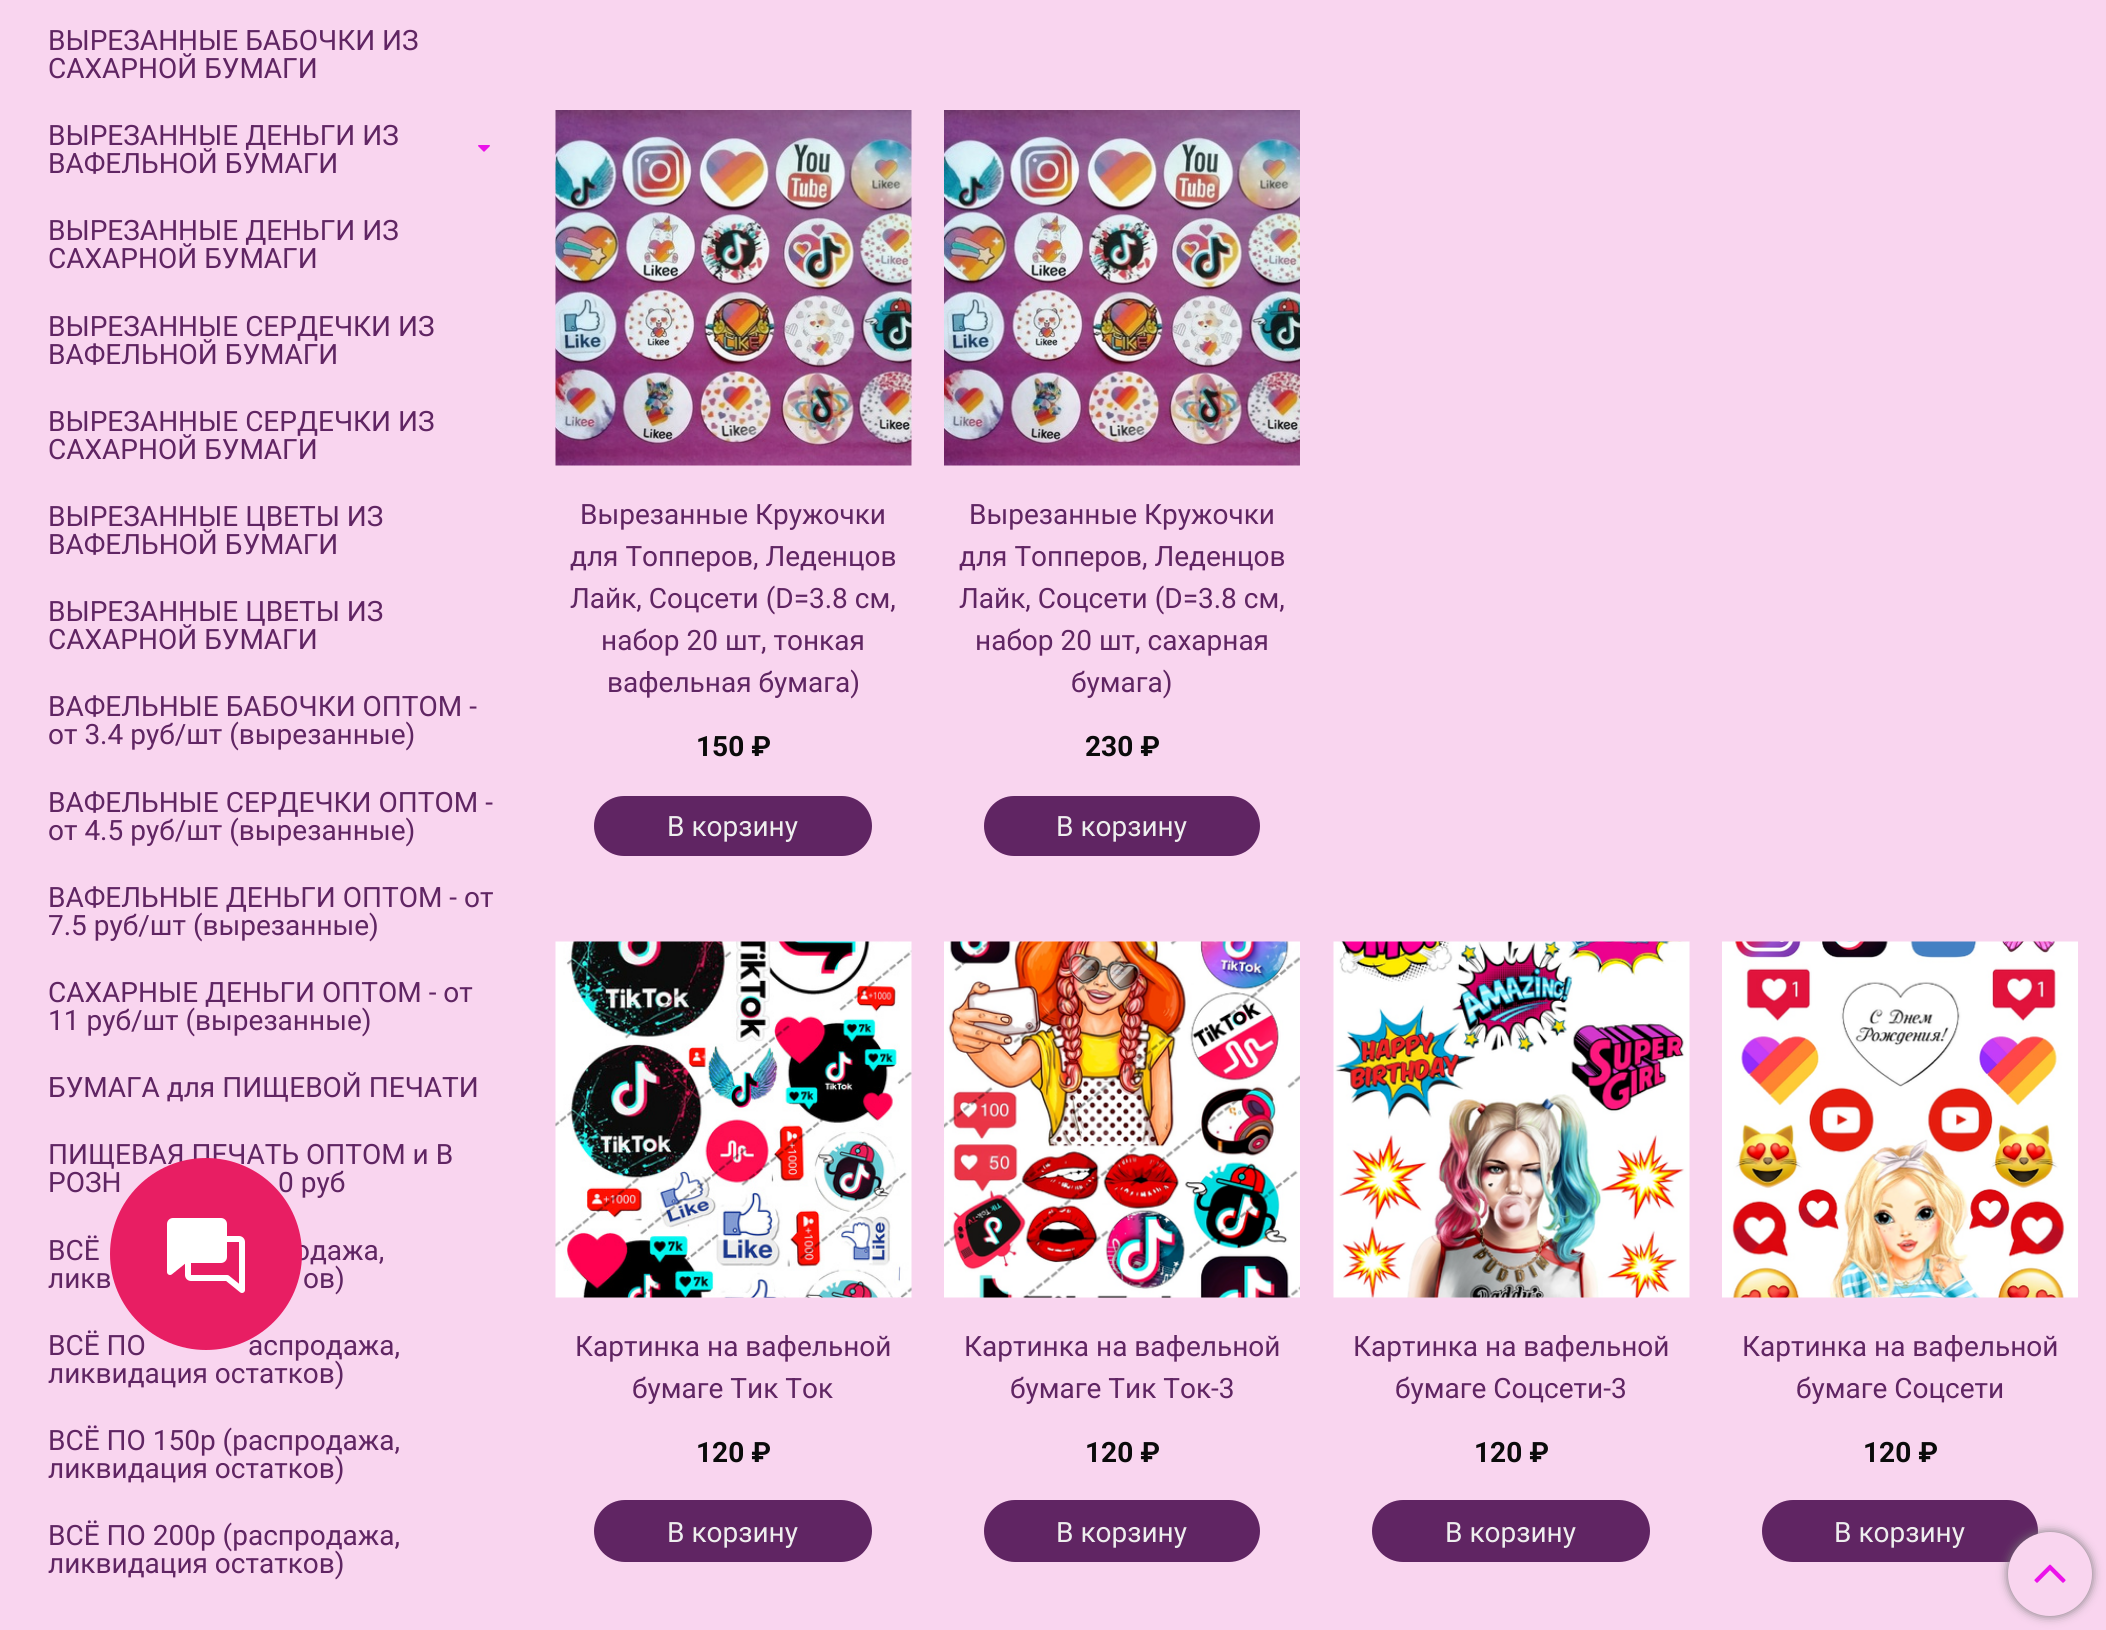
#include <cairo.h>
#include <math.h>
#include <stddef.h>

static cairo_t *ctx;

static void use_color(int r, int g, int b) {
    cairo_set_source_rgb(ctx, r / 255.0, g / 255.0, b / 255.0);
}

static void round_rect(double x, double y, double w, double h, double r) {
    cairo_new_sub_path(ctx);
    cairo_arc(ctx, x + w - r, y + h - r, r, 0, M_PI / 2);
    cairo_arc(ctx, x + r, y + h - r, r, M_PI / 2, M_PI);
    cairo_arc(ctx, x + r, y + r, r, M_PI, 1.5 * M_PI);
    cairo_arc(ctx, x + w - r, y + r, r, 1.5 * M_PI, 2 * M_PI);
    cairo_close_path(ctx);
}

static void shadow(double x, double y, double w, double h, double r, double blur, double alpha) {
    cairo_push_group_with_content(ctx, CAIRO_CONTENT_ALPHA);
    cairo_set_operator(ctx, CAIRO_OPERATOR_SOURCE);
    for (int i = 15; i >= -15 && fmin(w, h) + blur * i / 3 > 0; i -= 2) {
        double e = blur * i / 6;
        cairo_set_source_rgba(ctx, 0, 0, 0, alpha * erfc((i - 1) / 8.5) / 2);
        round_rect(x - e, y - e, w + 2 * e, h + 2 * e, fmax(0, fmin(r + e + blur * .6, fmin(w, h) / 2 + e)));
        cairo_fill(ctx);
    }
    cairo_pattern_t *soft = cairo_pop_group(ctx);
    cairo_mask(ctx, soft);
    cairo_pattern_destroy(soft);
}

static void picture(const char *path, double x, double y, double w, double h) {
    cairo_surface_t *image = cairo_image_surface_create_from_png(path);
    cairo_save(ctx);
    cairo_set_source_surface(ctx, image, x, y);
    cairo_rectangle(ctx, x, y, w, h);
    cairo_fill(ctx);
    cairo_restore(ctx);
    cairo_surface_destroy(image);
}

int main(void) {
    cairo_surface_t *surface = cairo_image_surface_create(CAIRO_FORMAT_RGB24, 2106, 1630);
    ctx = cairo_create(surface);
    cairo_font_options_t *options = cairo_font_options_create();
    cairo_font_options_set_hint_metrics(options, CAIRO_HINT_METRICS_OFF);
    cairo_font_options_set_hint_style(options, CAIRO_HINT_STYLE_NONE);
    cairo_set_font_options(ctx, options);
    cairo_set_miter_limit(ctx, 4);
    use_color(249, 213, 239);
    cairo_paint(ctx);
    cairo_select_font_face(ctx, "Roboto", CAIRO_FONT_SLANT_NORMAL, CAIRO_FONT_WEIGHT_NORMAL);
    cairo_set_font_size(ctx, 28);
    use_color(96, 37, 99);
    cairo_move_to(ctx, 48, 50);
    cairo_show_text(ctx, "ВЫРЕЗАННЫЕ БАБОЧКИ ИЗ");
    cairo_move_to(ctx, 48, 78);
    cairo_show_text(ctx, "САХАРНОЙ БУМАГИ");
    cairo_move_to(ctx, 48, 145);
    cairo_show_text(ctx, "ВЫРЕЗАННЫЕ ДЕНЬГИ ИЗ");
    cairo_move_to(ctx, 48, 173);
    cairo_show_text(ctx, "ВАФЕЛЬНОЙ БУМАГИ");
    picture("img1.png", 478, 145, 12, 7);
    cairo_move_to(ctx, 48, 240);
    cairo_show_text(ctx, "ВЫРЕЗАННЫЕ ДЕНЬГИ ИЗ");
    cairo_move_to(ctx, 48, 268);
    cairo_show_text(ctx, "САХАРНОЙ БУМАГИ");
    cairo_move_to(ctx, 48, 336);
    cairo_show_text(ctx, "ВЫРЕЗАННЫЕ СЕРДЕЧКИ ИЗ");
    cairo_move_to(ctx, 48, 364);
    cairo_show_text(ctx, "ВАФЕЛЬНОЙ БУМАГИ");
    cairo_move_to(ctx, 48, 431);
    cairo_show_text(ctx, "ВЫРЕЗАННЫЕ СЕРДЕЧКИ ИЗ");
    cairo_move_to(ctx, 48, 459);
    cairo_show_text(ctx, "САХАРНОЙ БУМАГИ");
    cairo_move_to(ctx, 48, 526);
    cairo_show_text(ctx, "ВЫРЕЗАННЫЕ ЦВЕТЫ ИЗ");
    cairo_move_to(ctx, 48, 554);
    cairo_show_text(ctx, "ВАФЕЛЬНОЙ БУМАГИ");
    cairo_move_to(ctx, 48, 621);
    cairo_show_text(ctx, "ВЫРЕЗАННЫЕ ЦВЕТЫ ИЗ");
    cairo_move_to(ctx, 48, 649);
    cairo_show_text(ctx, "САХАРНОЙ БУМАГИ");
    cairo_move_to(ctx, 48, 716);
    cairo_show_text(ctx, "ВАФЕЛЬНЫЕ БАБОЧКИ ОПТОМ -");
    cairo_move_to(ctx, 48, 744);
    cairo_show_text(ctx, "от 3.4 руб/шт (вырезанные)");
    cairo_move_to(ctx, 48, 812);
    cairo_show_text(ctx, "ВАФЕЛЬНЫЕ СЕРДЕЧКИ ОПТОМ -");
    cairo_move_to(ctx, 48, 840);
    cairo_show_text(ctx, "от 4.5 руб/шт (вырезанные)");
    cairo_move_to(ctx, 48, 907);
    cairo_show_text(ctx, "ВАФЕЛЬНЫЕ ДЕНЬГИ ОПТОМ - от");
    cairo_move_to(ctx, 48, 935);
    cairo_show_text(ctx, "7.5 руб/шт (вырезанные)");
    cairo_move_to(ctx, 48, 1002);
    cairo_show_text(ctx, "САХАРНЫЕ ДЕНЬГИ ОПТОМ - от");
    cairo_move_to(ctx, 48, 1030);
    cairo_show_text(ctx, "11 руб/шт (вырезанные)");
    cairo_move_to(ctx, 48, 1097);
    cairo_show_text(ctx, "БУМАГА для ПИЩЕВОЙ ПЕЧАТИ");
    cairo_move_to(ctx, 48, 1164);
    cairo_show_text(ctx, "ПИЩЕВАЯ ПЕЧАТЬ ОПТОМ и В");
    cairo_move_to(ctx, 48, 1192);
    cairo_show_text(ctx, "РОЗН");
    cairo_move_to(ctx, 278, 1192);
    cairo_show_text(ctx, "0 руб");
    cairo_move_to(ctx, 48, 1260);
    cairo_show_text(ctx, "ВСЁ");
    cairo_move_to(ctx, 294, 1260);
    cairo_show_text(ctx, "одажа,");
    cairo_move_to(ctx, 48, 1288);
    cairo_show_text(ctx, "ликв");
    cairo_move_to(ctx, 303, 1288);
    cairo_show_text(ctx, "ов)");
    cairo_move_to(ctx, 48, 1355);
    cairo_show_text(ctx, "ВСЁ ПО");
    cairo_move_to(ctx, 248, 1355);
    cairo_show_text(ctx, "аспродажа,");
    cairo_move_to(ctx, 48, 1383);
    cairo_show_text(ctx, "ликвидация остатков)");
    cairo_move_to(ctx, 48, 1450);
    cairo_show_text(ctx, "ВСЁ ПО 150р (распродажа,");
    cairo_move_to(ctx, 48, 1478);
    cairo_show_text(ctx, "ликвидация остатков)");
    cairo_move_to(ctx, 48, 1545);
    cairo_show_text(ctx, "ВСЁ ПО 200р (распродажа,");
    cairo_move_to(ctx, 48, 1573);
    cairo_show_text(ctx, "ликвидация остатков)");
    picture("img2.png", 555, 110, 357, 356);
    cairo_move_to(ctx, 580, 524);
    cairo_show_text(ctx, "Вырезанные Кружочки");
    cairo_move_to(ctx, 570, 566);
    cairo_show_text(ctx, "для Топперов, Леденцов");
    cairo_move_to(ctx, 570, 608);
    cairo_show_text(ctx, "Лайк, Соцсети (D=3.8 см,");
    cairo_move_to(ctx, 601, 650);
    cairo_show_text(ctx, "набор 20 шт, тонкая");
    cairo_move_to(ctx, 607, 692);
    cairo_show_text(ctx, "вафельная бумага)");
    cairo_select_font_face(ctx, "Roboto", CAIRO_FONT_SLANT_NORMAL, CAIRO_FONT_WEIGHT_BOLD);
    use_color(11, 11, 11);
    cairo_move_to(ctx, 696, 756);
    cairo_show_text(ctx, "150 ₽");
    use_color(96, 37, 99);
    round_rect(594, 796, 278, 60, 30);
    cairo_fill(ctx);
    cairo_select_font_face(ctx, "Roboto", CAIRO_FONT_SLANT_NORMAL, CAIRO_FONT_WEIGHT_NORMAL);
    use_color(238, 238, 238);
    cairo_move_to(ctx, 667, 836);
    cairo_show_text(ctx, "В корзину");
    picture("img3.png", 944, 110, 356, 356);
    use_color(96, 37, 99);
    cairo_move_to(ctx, 969, 524);
    cairo_show_text(ctx, "Вырезанные Кружочки");
    cairo_move_to(ctx, 959, 566);
    cairo_show_text(ctx, "для Топперов, Леденцов");
    cairo_move_to(ctx, 959, 608);
    cairo_show_text(ctx, "Лайк, Соцсети (D=3.8 см,");
    cairo_move_to(ctx, 975, 650);
    cairo_show_text(ctx, "набор 20 шт, сахарная");
    cairo_move_to(ctx, 1071, 692);
    cairo_show_text(ctx, "бумага)");
    cairo_select_font_face(ctx, "Roboto", CAIRO_FONT_SLANT_NORMAL, CAIRO_FONT_WEIGHT_BOLD);
    use_color(11, 11, 11);
    cairo_move_to(ctx, 1085, 756);
    cairo_show_text(ctx, "230 ₽");
    use_color(96, 37, 99);
    round_rect(984, 796, 276, 60, 30);
    cairo_fill(ctx);
    cairo_select_font_face(ctx, "Roboto", CAIRO_FONT_SLANT_NORMAL, CAIRO_FONT_WEIGHT_NORMAL);
    use_color(238, 238, 238);
    cairo_move_to(ctx, 1056, 836);
    cairo_show_text(ctx, "В корзину");
    picture("img4.png", 555, 941, 357, 357);
    use_color(96, 37, 99);
    cairo_move_to(ctx, 575, 1356);
    cairo_show_text(ctx, "Картинка на вафельной");
    cairo_move_to(ctx, 632, 1398);
    cairo_show_text(ctx, "бумаге Тик Ток");
    cairo_select_font_face(ctx, "Roboto", CAIRO_FONT_SLANT_NORMAL, CAIRO_FONT_WEIGHT_BOLD);
    use_color(11, 11, 11);
    cairo_move_to(ctx, 696, 1462);
    cairo_show_text(ctx, "120 ₽");
    use_color(96, 37, 99);
    round_rect(594, 1500, 278, 62, 31);
    cairo_fill(ctx);
    cairo_select_font_face(ctx, "Roboto", CAIRO_FONT_SLANT_NORMAL, CAIRO_FONT_WEIGHT_NORMAL);
    use_color(238, 238, 238);
    cairo_move_to(ctx, 667, 1542);
    cairo_show_text(ctx, "В корзину");
    picture("img5.png", 944, 941, 356, 357);
    use_color(96, 37, 99);
    cairo_move_to(ctx, 964, 1356);
    cairo_show_text(ctx, "Картинка на вафельной");
    cairo_move_to(ctx, 1010, 1398);
    cairo_show_text(ctx, "бумаге Тик Ток-3");
    cairo_select_font_face(ctx, "Roboto", CAIRO_FONT_SLANT_NORMAL, CAIRO_FONT_WEIGHT_BOLD);
    use_color(11, 11, 11);
    cairo_move_to(ctx, 1085, 1462);
    cairo_show_text(ctx, "120 ₽");
    use_color(96, 37, 99);
    round_rect(984, 1500, 276, 62, 31);
    cairo_fill(ctx);
    cairo_select_font_face(ctx, "Roboto", CAIRO_FONT_SLANT_NORMAL, CAIRO_FONT_WEIGHT_NORMAL);
    use_color(238, 238, 238);
    cairo_move_to(ctx, 1056, 1542);
    cairo_show_text(ctx, "В корзину");
    picture("img6.png", 1333, 941, 357, 357);
    use_color(96, 37, 99);
    cairo_move_to(ctx, 1353, 1356);
    cairo_show_text(ctx, "Картинка на вафельной");
    cairo_move_to(ctx, 1395, 1398);
    cairo_show_text(ctx, "бумаге Соцсети-3");
    cairo_select_font_face(ctx, "Roboto", CAIRO_FONT_SLANT_NORMAL, CAIRO_FONT_WEIGHT_BOLD);
    use_color(11, 11, 11);
    cairo_move_to(ctx, 1474, 1462);
    cairo_show_text(ctx, "120 ₽");
    use_color(96, 37, 99);
    round_rect(1372, 1500, 278, 62, 31);
    cairo_fill(ctx);
    cairo_select_font_face(ctx, "Roboto", CAIRO_FONT_SLANT_NORMAL, CAIRO_FONT_WEIGHT_NORMAL);
    use_color(238, 238, 238);
    cairo_move_to(ctx, 1445, 1542);
    cairo_show_text(ctx, "В корзину");
    picture("img7.png", 1722, 941, 356, 357);
    use_color(96, 37, 99);
    cairo_move_to(ctx, 1742, 1356);
    cairo_show_text(ctx, "Картинка на вафельной");
    cairo_move_to(ctx, 1796, 1398);
    cairo_show_text(ctx, "бумаге Соцсети");
    cairo_select_font_face(ctx, "Roboto", CAIRO_FONT_SLANT_NORMAL, CAIRO_FONT_WEIGHT_BOLD);
    use_color(11, 11, 11);
    cairo_move_to(ctx, 1863, 1462);
    cairo_show_text(ctx, "120 ₽");
    use_color(96, 37, 99);
    round_rect(1762, 1500, 276, 62, 31);
    cairo_fill(ctx);
    cairo_select_font_face(ctx, "Roboto", CAIRO_FONT_SLANT_NORMAL, CAIRO_FONT_WEIGHT_NORMAL);
    use_color(238, 238, 238);
    cairo_move_to(ctx, 1834, 1542);
    cairo_show_text(ctx, "В корзину");
    use_color(232, 30, 99);
    cairo_new_path(ctx);
    cairo_arc(ctx, 206, 1254, 96, 0, 2 * M_PI);
    cairo_fill(ctx);
    picture("img8.png", 167, 1218, 78, 75);
    use_color(119, 119, 119);
    shadow(2008, 1532, 84, 84, 42, 5, 1);
    use_color(249, 213, 239);
    cairo_arc(ctx, 2050, 1574, 42, 0, 2 * M_PI);
    cairo_fill(ctx);
    picture("img9.png", 2034, 1564, 32, 19);
    cairo_surface_write_to_png(surface, "result.png");
    cairo_font_options_destroy(options);
    cairo_destroy(ctx);
    cairo_surface_destroy(surface);
    return 0;
}
